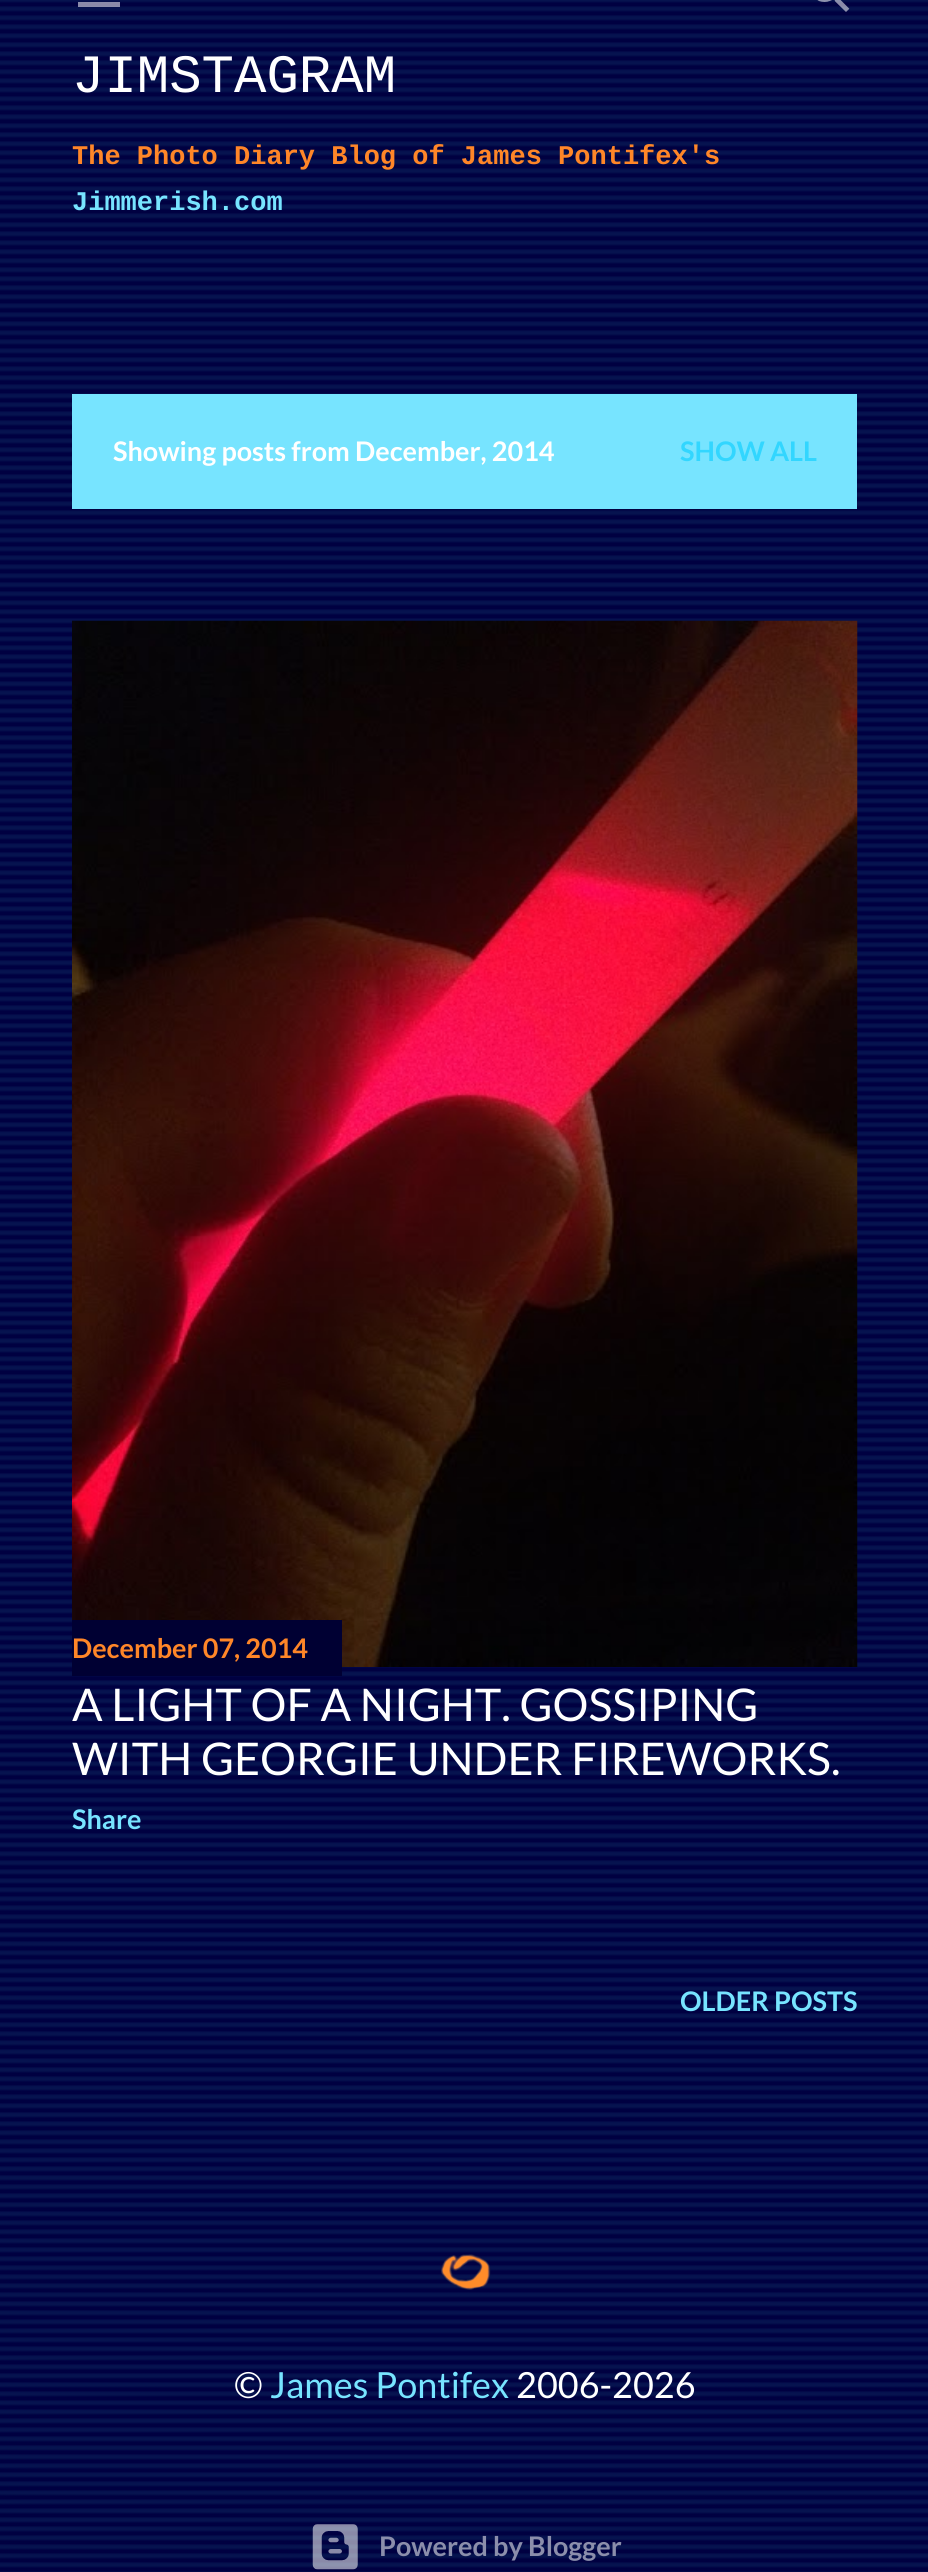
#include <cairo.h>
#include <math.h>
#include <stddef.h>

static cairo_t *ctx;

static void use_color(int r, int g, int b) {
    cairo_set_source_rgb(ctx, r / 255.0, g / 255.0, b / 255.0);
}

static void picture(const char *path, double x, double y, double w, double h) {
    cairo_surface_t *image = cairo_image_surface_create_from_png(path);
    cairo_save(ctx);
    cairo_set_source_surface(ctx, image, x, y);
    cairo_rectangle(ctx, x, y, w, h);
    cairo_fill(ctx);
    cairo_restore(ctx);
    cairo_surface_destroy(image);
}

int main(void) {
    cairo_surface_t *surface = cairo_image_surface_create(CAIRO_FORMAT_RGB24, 928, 2572);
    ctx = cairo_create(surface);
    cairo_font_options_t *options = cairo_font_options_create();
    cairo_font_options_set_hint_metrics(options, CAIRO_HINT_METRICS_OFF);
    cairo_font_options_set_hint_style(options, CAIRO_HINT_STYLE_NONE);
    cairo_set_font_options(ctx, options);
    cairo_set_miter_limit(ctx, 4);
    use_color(255, 255, 255);
    cairo_paint(ctx);
    picture("img1.png", 0, 0, 928, 2572);
    cairo_set_source_rgba(ctx, 1, 1, 1, 0.54);
    cairo_rectangle(ctx, 78, 2, 42, 5);
    cairo_fill(ctx);
    picture("img2.png", 817, 0, 33, 12);
    cairo_select_font_face(ctx, "Liberation Mono", CAIRO_FONT_SLANT_NORMAL, CAIRO_FONT_WEIGHT_NORMAL);
    cairo_set_font_size(ctx, 54);
    use_color(255, 255, 255);
    cairo_move_to(ctx, 72, 92);
    cairo_show_text(ctx, "JIMSTAGRAM");
    cairo_select_font_face(ctx, "Liberation Mono", CAIRO_FONT_SLANT_NORMAL, CAIRO_FONT_WEIGHT_BOLD);
    cairo_set_font_size(ctx, 27);
    use_color(255, 134, 40);
    cairo_move_to(ctx, 72, 164);
    cairo_show_text(ctx, "The Photo Diary Blog of James Pontifex's");
    use_color(119, 228, 255);
    cairo_move_to(ctx, 72, 210);
    cairo_show_text(ctx, "Jimmerish.com");
    cairo_rectangle(ctx, 72, 394, 785, 115);
    cairo_fill(ctx);
    cairo_select_font_face(ctx, "Lato", CAIRO_FONT_SLANT_NORMAL, CAIRO_FONT_WEIGHT_BOLD);
    use_color(255, 255, 255);
    cairo_move_to(ctx, 113, 461);
    cairo_show_text(ctx, "Showing posts from December, 2014");
    use_color(50, 214, 255);
    cairo_move_to(ctx, 680, 461);
    cairo_show_text(ctx, "SHOW ALL");
    picture("img3.png", 72, 620, 786, 1047);
    use_color(0, 0, 51);
    cairo_rectangle(ctx, 72, 1620, 270, 56);
    cairo_fill(ctx);
    use_color(255, 134, 40);
    cairo_move_to(ctx, 72, 1658);
    cairo_show_text(ctx, "December 07, 2014");
    cairo_select_font_face(ctx, "Lato", CAIRO_FONT_SLANT_NORMAL, CAIRO_FONT_WEIGHT_NORMAL);
    cairo_set_font_size(ctx, 45);
    use_color(255, 255, 255);
    cairo_move_to(ctx, 72, 1721);
    cairo_show_text(ctx, "A LIGHT OF A NIGHT. GOSSIPING");
    cairo_move_to(ctx, 72, 1775);
    cairo_show_text(ctx, "WITH GEORGIE UNDER FIREWORKS.");
    cairo_select_font_face(ctx, "Lato", CAIRO_FONT_SLANT_NORMAL, CAIRO_FONT_WEIGHT_BOLD);
    cairo_set_font_size(ctx, 27);
    use_color(119, 228, 255);
    cairo_move_to(ctx, 72, 1829);
    cairo_show_text(ctx, "Share");
    cairo_move_to(ctx, 680, 2011);
    cairo_show_text(ctx, "OLDER POSTS");
    picture("img4.png", 441, 2254, 50, 36);
    cairo_select_font_face(ctx, "Lato", CAIRO_FONT_SLANT_NORMAL, CAIRO_FONT_WEIGHT_NORMAL);
    cairo_set_font_size(ctx, 36);
    use_color(255, 255, 255);
    cairo_move_to(ctx, 234, 2398);
    cairo_show_text(ctx, "©");
    use_color(119, 228, 255);
    cairo_move_to(ctx, 270, 2398);
    cairo_show_text(ctx, "James Pontifex");
    use_color(255, 255, 255);
    cairo_move_to(ctx, 516, 2398);
    cairo_show_text(ctx, "2006-2026");
    picture("img5.png", 312, 2524, 46, 46);
    cairo_select_font_face(ctx, "Lato", CAIRO_FONT_SLANT_NORMAL, CAIRO_FONT_WEIGHT_BOLD);
    cairo_set_font_size(ctx, 27);
    use_color(139, 142, 171);
    cairo_move_to(ctx, 379, 2556);
    cairo_show_text(ctx, "Powered by Blogger");
    cairo_surface_write_to_png(surface, "result.png");
    cairo_font_options_destroy(options);
    cairo_destroy(ctx);
    cairo_surface_destroy(surface);
    return 0;
}
